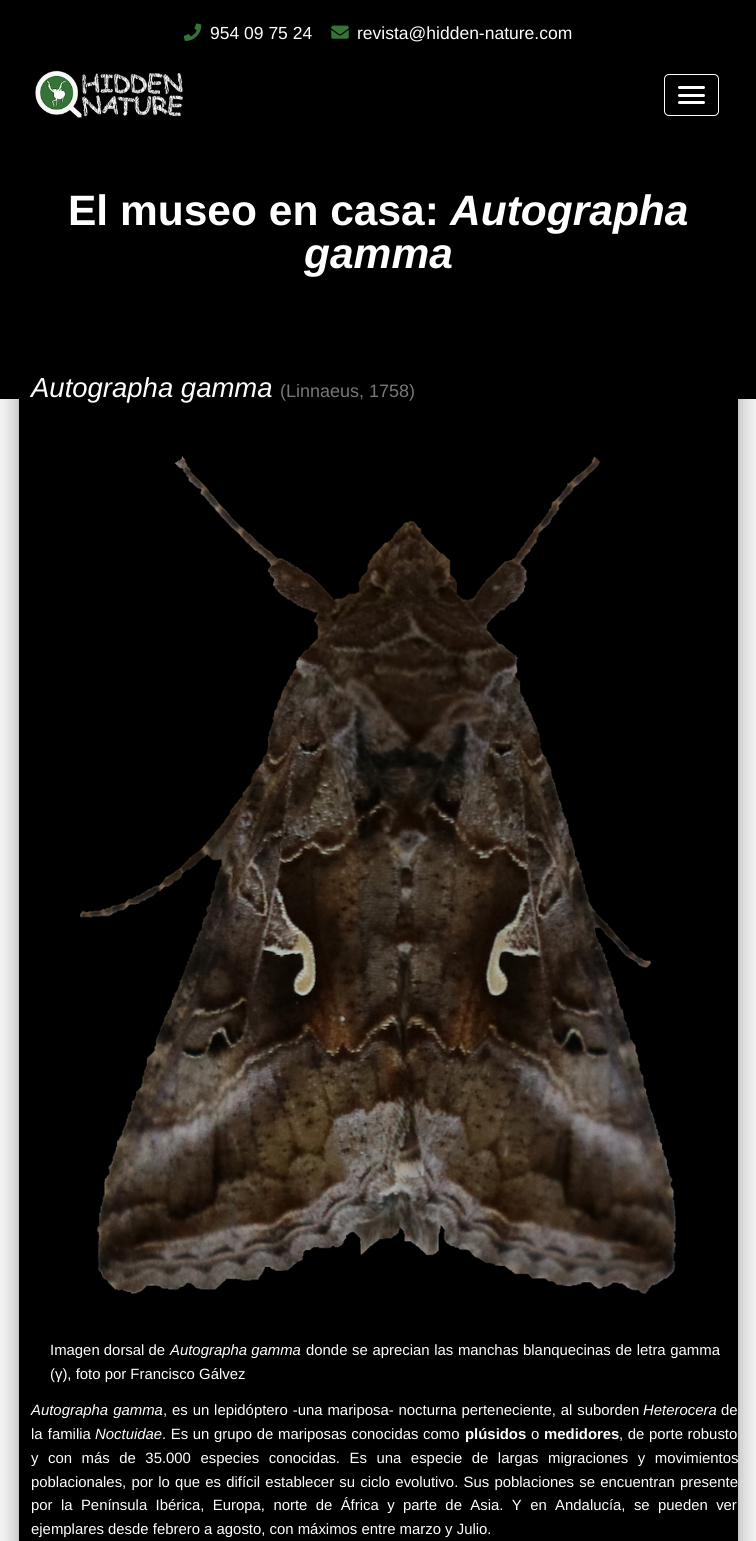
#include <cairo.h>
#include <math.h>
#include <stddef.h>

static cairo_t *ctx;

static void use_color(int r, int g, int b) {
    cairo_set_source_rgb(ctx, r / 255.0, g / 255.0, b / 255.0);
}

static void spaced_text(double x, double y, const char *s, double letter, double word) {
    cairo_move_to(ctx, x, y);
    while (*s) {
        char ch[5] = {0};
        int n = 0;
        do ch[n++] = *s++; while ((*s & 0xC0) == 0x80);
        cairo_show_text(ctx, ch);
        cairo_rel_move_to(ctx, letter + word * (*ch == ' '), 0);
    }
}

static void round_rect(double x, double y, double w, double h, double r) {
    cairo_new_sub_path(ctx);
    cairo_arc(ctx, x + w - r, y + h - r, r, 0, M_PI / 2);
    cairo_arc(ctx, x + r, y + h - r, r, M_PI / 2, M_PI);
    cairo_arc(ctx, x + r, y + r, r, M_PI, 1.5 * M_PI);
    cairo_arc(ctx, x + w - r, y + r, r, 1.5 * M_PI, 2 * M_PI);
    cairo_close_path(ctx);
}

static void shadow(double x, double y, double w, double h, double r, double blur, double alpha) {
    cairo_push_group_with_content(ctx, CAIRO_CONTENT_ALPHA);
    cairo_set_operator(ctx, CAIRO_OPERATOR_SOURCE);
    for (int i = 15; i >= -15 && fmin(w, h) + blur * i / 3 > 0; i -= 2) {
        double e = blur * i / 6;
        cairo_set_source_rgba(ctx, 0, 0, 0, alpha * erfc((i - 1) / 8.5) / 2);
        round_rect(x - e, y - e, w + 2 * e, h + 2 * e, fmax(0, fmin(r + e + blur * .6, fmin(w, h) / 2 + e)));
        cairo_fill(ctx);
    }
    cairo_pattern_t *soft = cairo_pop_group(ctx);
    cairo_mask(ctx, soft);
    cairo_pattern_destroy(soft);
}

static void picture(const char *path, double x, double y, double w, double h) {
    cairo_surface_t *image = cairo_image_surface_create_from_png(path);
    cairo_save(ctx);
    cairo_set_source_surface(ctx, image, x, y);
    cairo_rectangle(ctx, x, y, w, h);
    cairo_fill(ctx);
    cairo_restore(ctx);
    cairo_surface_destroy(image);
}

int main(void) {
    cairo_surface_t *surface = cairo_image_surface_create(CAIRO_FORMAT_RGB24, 756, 1541);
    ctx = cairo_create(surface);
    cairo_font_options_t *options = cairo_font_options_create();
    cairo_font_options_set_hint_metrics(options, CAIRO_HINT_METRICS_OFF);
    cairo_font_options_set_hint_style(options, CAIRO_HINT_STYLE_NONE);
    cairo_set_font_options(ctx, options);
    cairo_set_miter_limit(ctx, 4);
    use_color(246, 246, 246);
    cairo_paint(ctx);
    use_color(0, 0, 0);
    cairo_rectangle(ctx, 0, 0, 756, 399);
    cairo_fill(ctx);
    picture("img1.png", 183, 23, 19, 18);
    cairo_select_font_face(ctx, "Liberation Sans", CAIRO_FONT_SLANT_NORMAL, CAIRO_FONT_WEIGHT_NORMAL);
    cairo_set_font_size(ctx, 17.5);
    use_color(255, 255, 255);
    cairo_move_to(ctx, 210, 39);
    cairo_show_text(ctx, "954 09 75 24");
    picture("img2.png", 331, 25, 18, 14);
    cairo_move_to(ctx, 357, 39);
    cairo_show_text(ctx, "revista@hidden-nature.com");
    picture("img3.png", 35, 70, 149, 48);
    round_rect(664.5, 74.5, 54, 41, 4.5);
    cairo_set_line_width(ctx, 1);
    cairo_stroke(ctx);
    round_rect(678, 86, 27, 3, 1.5);
    cairo_fill(ctx);
    round_rect(678, 94, 27, 3, 1.5);
    cairo_fill(ctx);
    round_rect(678, 101, 27, 3, 1.5);
    cairo_fill(ctx);
    cairo_select_font_face(ctx, "Liberation Sans", CAIRO_FONT_SLANT_NORMAL, CAIRO_FONT_WEIGHT_BOLD);
    cairo_set_font_size(ctx, 42.5);
    cairo_move_to(ctx, 68, 225);
    cairo_show_text(ctx, "El museo en casa:");
    cairo_select_font_face(ctx, "Liberation Sans", CAIRO_FONT_SLANT_ITALIC, CAIRO_FONT_WEIGHT_BOLD);
    cairo_move_to(ctx, 450, 225);
    cairo_show_text(ctx, "Autographa");
    cairo_move_to(ctx, 304, 268);
    cairo_show_text(ctx, "gamma");
    use_color(0, 0, 0);
    shadow(19, 356, 719, 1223, 0, 12.5, 0.19);
    shadow(19, 361, 719, 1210, 0, 10, 0.2);
    use_color(0, 0, 0);
    cairo_rectangle(ctx, 19, 399, 719, 1142);
    cairo_fill(ctx);
    cairo_select_font_face(ctx, "Liberation Sans", CAIRO_FONT_SLANT_ITALIC, CAIRO_FONT_WEIGHT_NORMAL);
    cairo_set_font_size(ctx, 27.5);
    use_color(255, 255, 255);
    cairo_move_to(ctx, 31, 397);
    cairo_show_text(ctx, "Autographa gamma");
    cairo_select_font_face(ctx, "Liberation Sans", CAIRO_FONT_SLANT_NORMAL, CAIRO_FONT_WEIGHT_NORMAL);
    cairo_set_font_size(ctx, 18);
    use_color(119, 119, 119);
    cairo_move_to(ctx, 280, 397);
    cairo_show_text(ctx, "(Linnaeus, 1758)");
    picture("img4.png", 80, 455, 596, 840);
    cairo_set_font_size(ctx, 14.9);
    use_color(255, 255, 255);
    cairo_move_to(ctx, 50, 1355);
    cairo_show_text(ctx, "Imagen dorsal de");
    cairo_select_font_face(ctx, "Liberation Sans", CAIRO_FONT_SLANT_ITALIC, CAIRO_FONT_WEIGHT_NORMAL);
    cairo_move_to(ctx, 170, 1355);
    cairo_show_text(ctx, "Autographa gamma");
    cairo_select_font_face(ctx, "Liberation Sans", CAIRO_FONT_SLANT_NORMAL, CAIRO_FONT_WEIGHT_NORMAL);
    spaced_text(306, 1355, "donde se aprecian las manchas blanquecinas de letra gamma", 0, 0.5);
    cairo_move_to(ctx, 50, 1379);
    cairo_show_text(ctx, "(γ), foto por Francisco Gálvez");
    cairo_select_font_face(ctx, "Liberation Sans", CAIRO_FONT_SLANT_ITALIC, CAIRO_FONT_WEIGHT_NORMAL);
    spaced_text(31, 1415, "Autographa gamma", 0, 1);
    cairo_select_font_face(ctx, "Liberation Sans", CAIRO_FONT_SLANT_NORMAL, CAIRO_FONT_WEIGHT_NORMAL);
    spaced_text(163, 1415, ", es un lepidóptero -una mariposa- nocturna perteneciente, al suborden", 0, 0.75);
    cairo_select_font_face(ctx, "Liberation Sans", CAIRO_FONT_SLANT_ITALIC, CAIRO_FONT_WEIGHT_NORMAL);
    cairo_move_to(ctx, 643, 1415);
    cairo_show_text(ctx, "Heterocera");
    cairo_select_font_face(ctx, "Liberation Sans", CAIRO_FONT_SLANT_NORMAL, CAIRO_FONT_WEIGHT_NORMAL);
    cairo_move_to(ctx, 721, 1415);
    cairo_show_text(ctx, "de");
    spaced_text(31, 1439, "la familia", 0, 1);
    cairo_select_font_face(ctx, "Liberation Sans", CAIRO_FONT_SLANT_ITALIC, CAIRO_FONT_WEIGHT_NORMAL);
    cairo_move_to(ctx, 95, 1439);
    cairo_show_text(ctx, "Noctuidae");
    cairo_select_font_face(ctx, "Liberation Sans", CAIRO_FONT_SLANT_NORMAL, CAIRO_FONT_WEIGHT_NORMAL);
    spaced_text(162, 1439, ". Es un grupo de mariposas conocidas como", 0, 0.5);
    cairo_select_font_face(ctx, "Liberation Sans", CAIRO_FONT_SLANT_NORMAL, CAIRO_FONT_WEIGHT_BOLD);
    cairo_move_to(ctx, 465, 1439);
    cairo_show_text(ctx, "plúsidos");
    cairo_select_font_face(ctx, "Liberation Sans", CAIRO_FONT_SLANT_NORMAL, CAIRO_FONT_WEIGHT_NORMAL);
    cairo_move_to(ctx, 531, 1439);
    cairo_show_text(ctx, "o");
    cairo_select_font_face(ctx, "Liberation Sans", CAIRO_FONT_SLANT_NORMAL, CAIRO_FONT_WEIGHT_BOLD);
    cairo_move_to(ctx, 544, 1439);
    cairo_show_text(ctx, "medidores");
    cairo_select_font_face(ctx, "Liberation Sans", CAIRO_FONT_SLANT_NORMAL, CAIRO_FONT_WEIGHT_NORMAL);
    spaced_text(619, 1439, ", de porte robusto", 0, 0.5);
    spaced_text(31, 1463, "y con más de 35.000 especies conocidas. Es una especie de largas migraciones y movimientos", 0, 5.4);
    spaced_text(31, 1487, "poblacionales, por lo que es difícil establecer su ciclo evolutivo. Sus poblaciones se encuentran presente", 0, 1.1);
    spaced_text(31, 1510, "por la Península Ibérica, Europa, norte de África y parte de Asia. Y en Andalucía, se pueden ver", 0, 4.25);
    cairo_move_to(ctx, 31, 1534);
    cairo_show_text(ctx, "ejemplares desde febrero a agosto, con máximos entre marzo y Julio.");
    cairo_surface_write_to_png(surface, "result.png");
    cairo_font_options_destroy(options);
    cairo_destroy(ctx);
    cairo_surface_destroy(surface);
    return 0;
}
